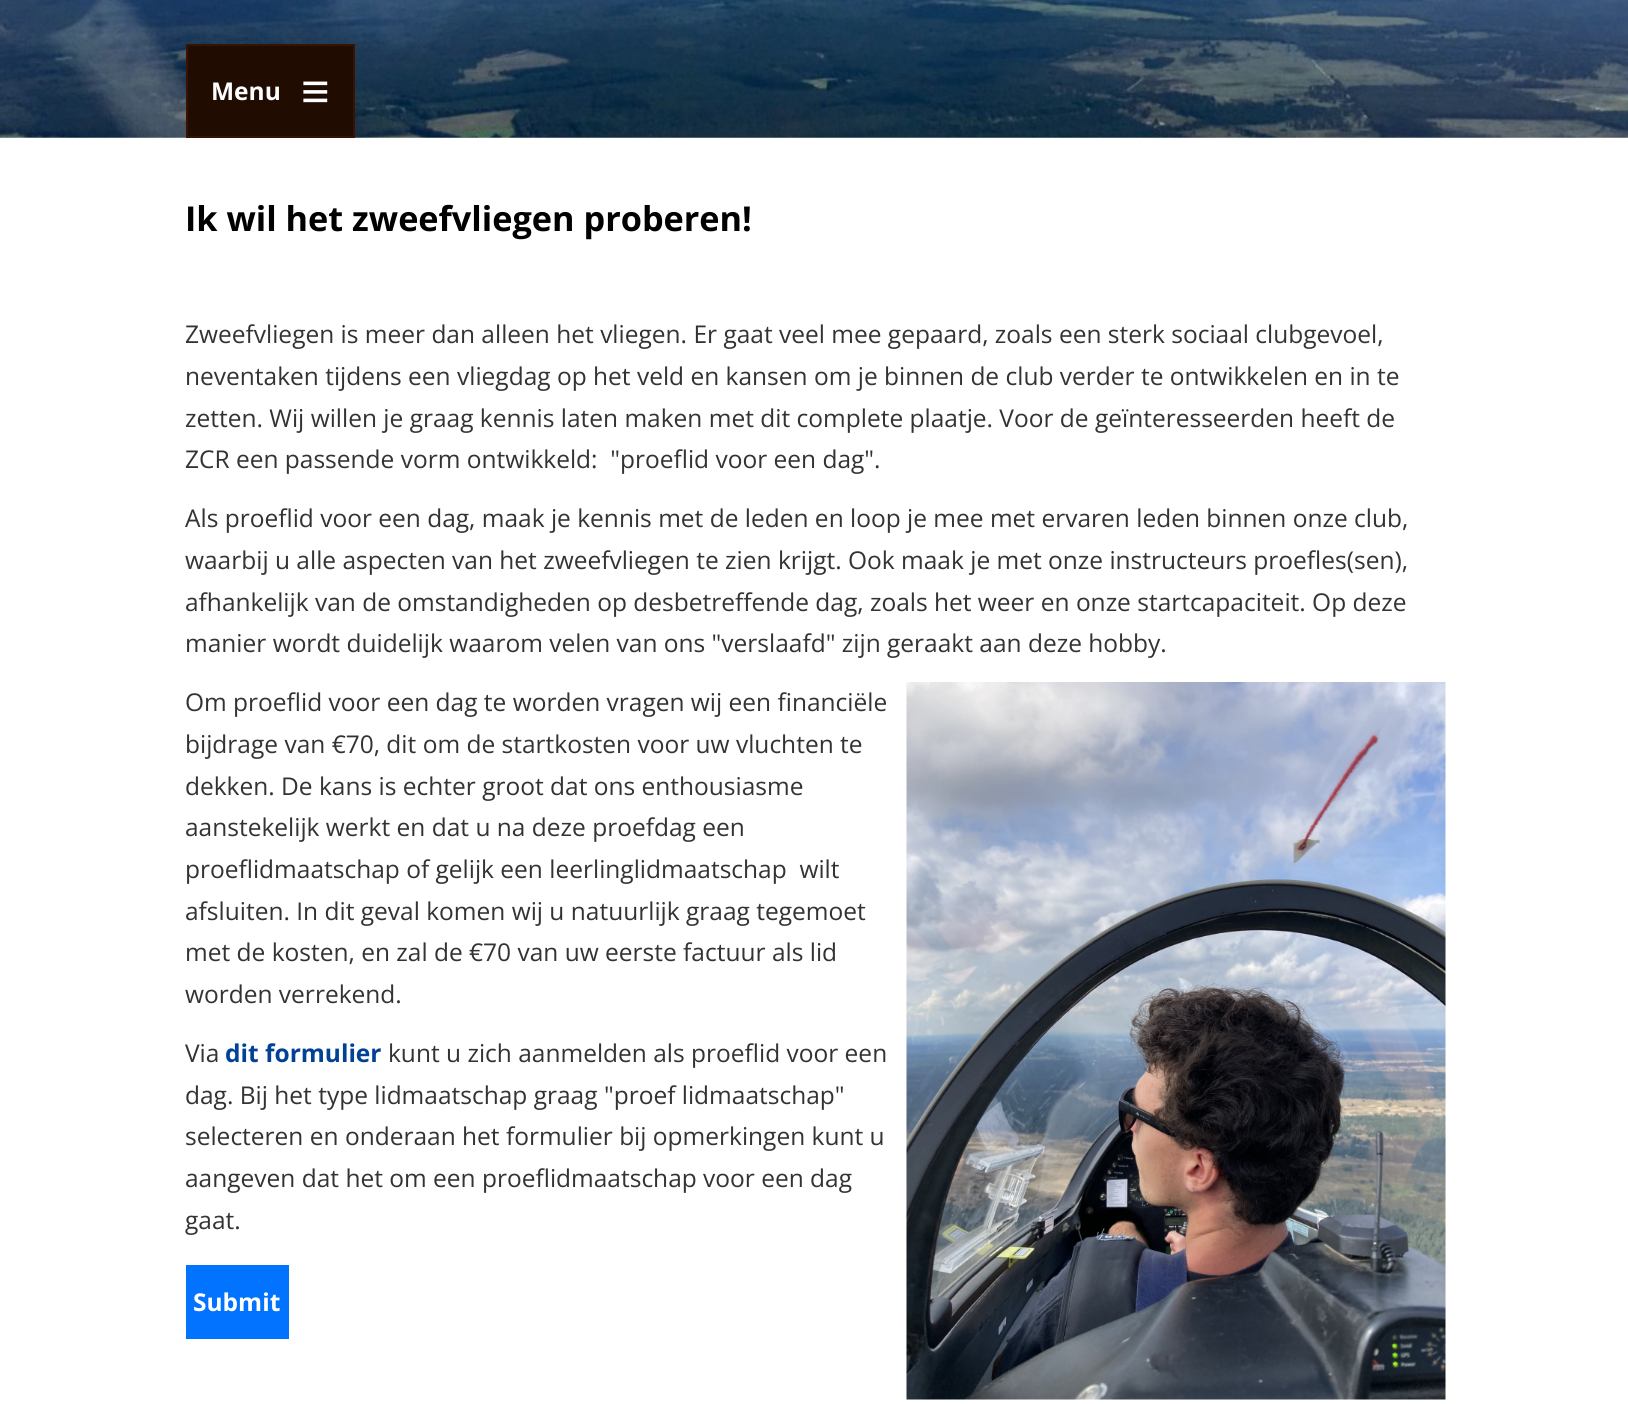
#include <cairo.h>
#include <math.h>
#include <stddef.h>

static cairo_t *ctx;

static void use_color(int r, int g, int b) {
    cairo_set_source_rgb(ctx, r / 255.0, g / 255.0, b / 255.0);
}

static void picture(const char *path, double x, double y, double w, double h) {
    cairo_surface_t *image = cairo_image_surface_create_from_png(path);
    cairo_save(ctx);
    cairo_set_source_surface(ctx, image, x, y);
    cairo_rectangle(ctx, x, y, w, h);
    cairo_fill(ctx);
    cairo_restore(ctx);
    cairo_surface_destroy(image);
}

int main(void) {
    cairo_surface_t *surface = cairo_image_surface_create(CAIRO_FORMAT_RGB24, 1628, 1404);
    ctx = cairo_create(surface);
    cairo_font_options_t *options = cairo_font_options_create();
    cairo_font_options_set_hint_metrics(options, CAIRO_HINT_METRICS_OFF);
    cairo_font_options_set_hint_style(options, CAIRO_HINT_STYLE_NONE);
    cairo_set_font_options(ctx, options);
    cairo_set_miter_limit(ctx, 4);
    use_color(255, 255, 255);
    cairo_paint(ctx);
    picture("img1.png", 0, 0, 1628, 138);
    use_color(33, 12, 2);
    cairo_rectangle(ctx, 187, 45, 167, 92);
    cairo_fill_preserve(ctx);
    use_color(56, 19, 1);
    cairo_stroke(ctx);
    cairo_select_font_face(ctx, "Open Sans", CAIRO_FONT_SLANT_NORMAL, CAIRO_FONT_WEIGHT_BOLD);
    cairo_set_font_size(ctx, 24.5);
    use_color(255, 255, 255);
    cairo_move_to(ctx, 211, 100);
    cairo_show_text(ctx, "Menu");
    cairo_select_font_face(ctx, "Liberation Sans", CAIRO_FONT_SLANT_NORMAL, CAIRO_FONT_WEIGHT_BOLD);
    cairo_set_font_size(ctx, 49);
    cairo_move_to(ctx, 301, 108);
    cairo_show_text(ctx, "≡");
    cairo_select_font_face(ctx, "Open Sans", CAIRO_FONT_SLANT_NORMAL, CAIRO_FONT_WEIGHT_BOLD);
    cairo_set_font_size(ctx, 34.25);
    use_color(0, 0, 0);
    cairo_move_to(ctx, 185, 231);
    cairo_show_text(ctx, "Ik wil het zweefvliegen proberen!");
    cairo_select_font_face(ctx, "Open Sans", CAIRO_FONT_SLANT_NORMAL, CAIRO_FONT_WEIGHT_NORMAL);
    cairo_set_font_size(ctx, 24.5);
    use_color(51, 51, 51);
    cairo_move_to(ctx, 185, 343);
    cairo_show_text(ctx, "Zweefvliegen is meer dan alleen het vliegen. Er gaat veel mee gepaard, zoals een sterk sociaal clubgevoel,");
    cairo_move_to(ctx, 185, 385);
    cairo_show_text(ctx, "neventaken tijdens een vliegdag op het veld en kansen om je binnen de club verder te ontwikkelen en in te");
    cairo_move_to(ctx, 185, 427);
    cairo_show_text(ctx, "zetten. Wij willen je graag kennis laten maken met dit complete plaatje. Voor de geïnteresseerden heeft de");
    cairo_move_to(ctx, 185, 468);
    cairo_show_text(ctx, "ZCR een passende vorm ontwikkeld:  \"proeflid voor een dag\".");
    cairo_move_to(ctx, 185, 527);
    cairo_show_text(ctx, "Als proeflid voor een dag, maak je kennis met de leden en loop je mee met ervaren leden binnen onze club,");
    cairo_move_to(ctx, 185, 569);
    cairo_show_text(ctx, "waarbij u alle aspecten van het zweefvliegen te zien krijgt. Ook maak je met onze instructeurs proefles(sen),");
    cairo_move_to(ctx, 185, 611);
    cairo_show_text(ctx, "afhankelijk van de omstandigheden op desbetreffende dag, zoals het weer en onze startcapaciteit. Op deze");
    cairo_move_to(ctx, 185, 652);
    cairo_show_text(ctx, "manier wordt duidelijk waarom velen van ons \"verslaafd\" zijn geraakt aan deze hobby.");
    cairo_move_to(ctx, 185, 711);
    cairo_show_text(ctx, "Om proeflid voor een dag te worden vragen wij een financiële");
    cairo_move_to(ctx, 185, 753);
    cairo_show_text(ctx, "bijdrage van €70, dit om de startkosten voor uw vluchten te");
    cairo_move_to(ctx, 185, 795);
    cairo_show_text(ctx, "dekken. De kans is echter groot dat ons enthousiasme");
    cairo_move_to(ctx, 185, 836);
    cairo_show_text(ctx, "aanstekelijk werkt en dat u na deze proefdag een");
    cairo_move_to(ctx, 185, 878);
    cairo_show_text(ctx, "proeflidmaatschap of gelijk een leerlinglidmaatschap  wilt");
    cairo_move_to(ctx, 185, 920);
    cairo_show_text(ctx, "afsluiten. In dit geval komen wij u natuurlijk graag tegemoet");
    cairo_move_to(ctx, 185, 961);
    cairo_show_text(ctx, "met de kosten, en zal de €70 van uw eerste factuur als lid");
    cairo_move_to(ctx, 185, 1003);
    cairo_show_text(ctx, "worden verrekend.");
    picture("img2.png", 906, 682, 540, 718);
    cairo_move_to(ctx, 185, 1062);
    cairo_show_text(ctx, "Via");
    cairo_select_font_face(ctx, "Open Sans", CAIRO_FONT_SLANT_NORMAL, CAIRO_FONT_WEIGHT_BOLD);
    use_color(1, 66, 148);
    cairo_move_to(ctx, 225, 1062);
    cairo_show_text(ctx, "dit formulier");
    cairo_select_font_face(ctx, "Open Sans", CAIRO_FONT_SLANT_NORMAL, CAIRO_FONT_WEIGHT_NORMAL);
    use_color(51, 51, 51);
    cairo_move_to(ctx, 388, 1062);
    cairo_show_text(ctx, "kunt u zich aanmelden als proeflid voor een");
    cairo_move_to(ctx, 185, 1104);
    cairo_show_text(ctx, "dag. Bij het type lidmaatschap graag \"proef lidmaatschap\"");
    cairo_move_to(ctx, 185, 1145);
    cairo_show_text(ctx, "selecteren en onderaan het formulier bij opmerkingen kunt u");
    cairo_move_to(ctx, 185, 1187);
    cairo_show_text(ctx, "aangeven dat het om een proeflidmaatschap voor een dag");
    cairo_move_to(ctx, 185, 1229);
    cairo_show_text(ctx, "gaat.");
    use_color(1, 115, 255);
    cairo_rectangle(ctx, 186, 1265, 103, 74);
    cairo_fill(ctx);
    cairo_select_font_face(ctx, "Open Sans", CAIRO_FONT_SLANT_NORMAL, CAIRO_FONT_WEIGHT_BOLD);
    use_color(255, 255, 255);
    cairo_move_to(ctx, 193, 1311);
    cairo_show_text(ctx, "Submit");
    cairo_surface_write_to_png(surface, "result.png");
    cairo_font_options_destroy(options);
    cairo_destroy(ctx);
    cairo_surface_destroy(surface);
    return 0;
}
